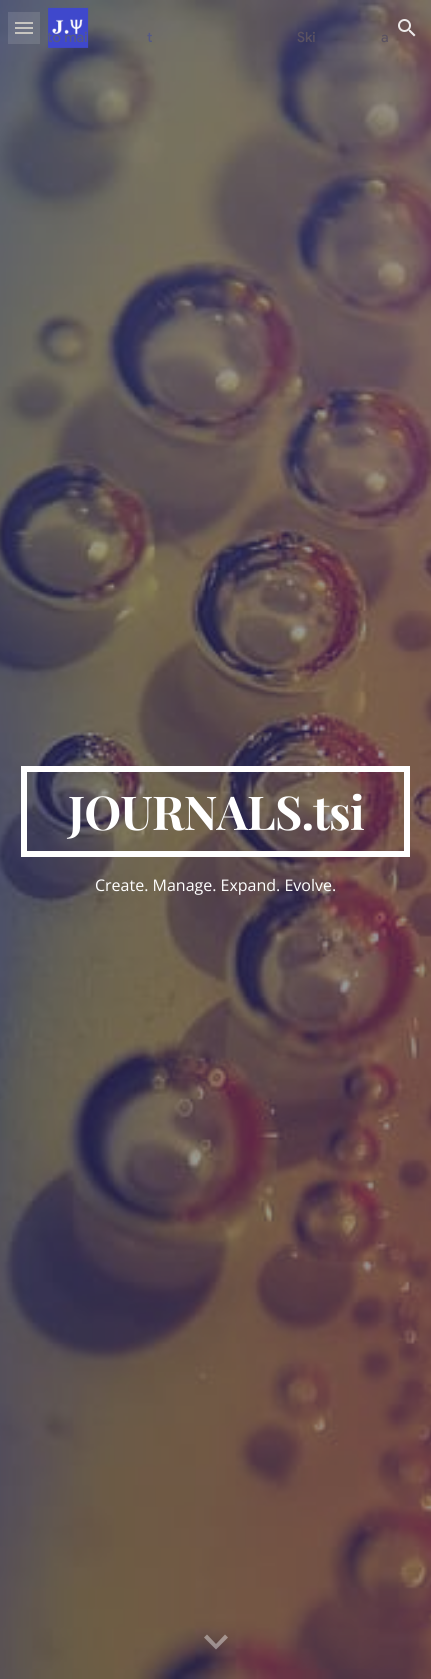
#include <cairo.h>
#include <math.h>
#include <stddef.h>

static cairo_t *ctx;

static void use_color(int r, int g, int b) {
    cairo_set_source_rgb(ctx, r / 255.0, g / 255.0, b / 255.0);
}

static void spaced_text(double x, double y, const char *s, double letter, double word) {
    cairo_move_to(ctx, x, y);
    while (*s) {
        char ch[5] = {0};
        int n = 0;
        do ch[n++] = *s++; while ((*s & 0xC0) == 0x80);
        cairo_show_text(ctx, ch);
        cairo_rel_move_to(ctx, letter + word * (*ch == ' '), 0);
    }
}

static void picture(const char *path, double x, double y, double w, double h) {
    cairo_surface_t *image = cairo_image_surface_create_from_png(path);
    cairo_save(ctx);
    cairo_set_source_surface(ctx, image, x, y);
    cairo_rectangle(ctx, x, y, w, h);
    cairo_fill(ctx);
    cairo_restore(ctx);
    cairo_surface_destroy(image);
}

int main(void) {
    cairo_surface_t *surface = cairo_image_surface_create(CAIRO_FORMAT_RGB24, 431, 1679);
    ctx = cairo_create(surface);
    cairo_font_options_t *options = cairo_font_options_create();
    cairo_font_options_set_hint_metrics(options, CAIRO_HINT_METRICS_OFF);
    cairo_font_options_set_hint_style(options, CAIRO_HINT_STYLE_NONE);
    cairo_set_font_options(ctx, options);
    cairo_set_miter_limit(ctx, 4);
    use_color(255, 255, 255);
    cairo_paint(ctx);
    picture("img3.png", 0, 0, 431, 1679);
    picture("img1.png", 48, 7, 41, 41);
    cairo_select_font_face(ctx, "Google Sans Medium", CAIRO_FONT_SLANT_NORMAL, CAIRO_FONT_WEIGHT_NORMAL);
    cairo_set_font_size(ctx, 14);
    use_color(85, 89, 133);
    cairo_move_to(ctx, 47, 42);
    cairo_show_text(ctx, "to mai");
    cairo_move_to(ctx, 147, 42);
    cairo_show_text(ctx, "t");
    use_color(91, 82, 96);
    cairo_move_to(ctx, 297, 42);
    cairo_show_text(ctx, "Ski");
    cairo_move_to(ctx, 381, 42);
    cairo_show_text(ctx, "a");
    use_color(192, 189, 184);
    cairo_rectangle(ctx, 15, 22, 18, 2);
    cairo_fill(ctx);
    cairo_rectangle(ctx, 15, 27, 18, 2);
    cairo_fill(ctx);
    cairo_rectangle(ctx, 15, 32, 18, 2);
    cairo_fill(ctx);
    cairo_set_source_rgba(ctx, 1, 1, 1, 0.12);
    cairo_rectangle(ctx, 8, 12, 32, 32);
    cairo_fill(ctx);
    picture("img2.png", 398, 19, 18, 18);
    cairo_rectangle(ctx, 24, 769, 383, 85);
    use_color(255, 255, 255);
    cairo_set_line_width(ctx, 6);
    cairo_stroke(ctx);
    cairo_select_font_face(ctx, "Playfair Display", CAIRO_FONT_SLANT_NORMAL, CAIRO_FONT_WEIGHT_BOLD);
    cairo_set_font_size(ctx, 46.75);
    spaced_text(68, 830, "JOURNALS.tsi", -0.75, 0);
    cairo_select_font_face(ctx, "Open Sans", CAIRO_FONT_SLANT_NORMAL, CAIRO_FONT_WEIGHT_NORMAL);
    cairo_set_font_size(ctx, 16);
    cairo_move_to(ctx, 95, 891);
    cairo_show_text(ctx, "Create. Manage. Expand. Evolve.");
    cairo_set_source_rgba(ctx, 1, 1, 1, 0.4);
    cairo_new_path(ctx);
    cairo_move_to(ctx, 207, 1634.5);
    cairo_line_to(ctx, 216, 1644);
    cairo_line_to(ctx, 225, 1634.5);
    cairo_line_to(ctx, 228, 1637.5);
    cairo_line_to(ctx, 216, 1649.5);
    cairo_line_to(ctx, 204, 1637.5);
    cairo_close_path(ctx);
    cairo_fill(ctx);
    cairo_surface_write_to_png(surface, "result.png");
    cairo_font_options_destroy(options);
    cairo_destroy(ctx);
    cairo_surface_destroy(surface);
    return 0;
}
